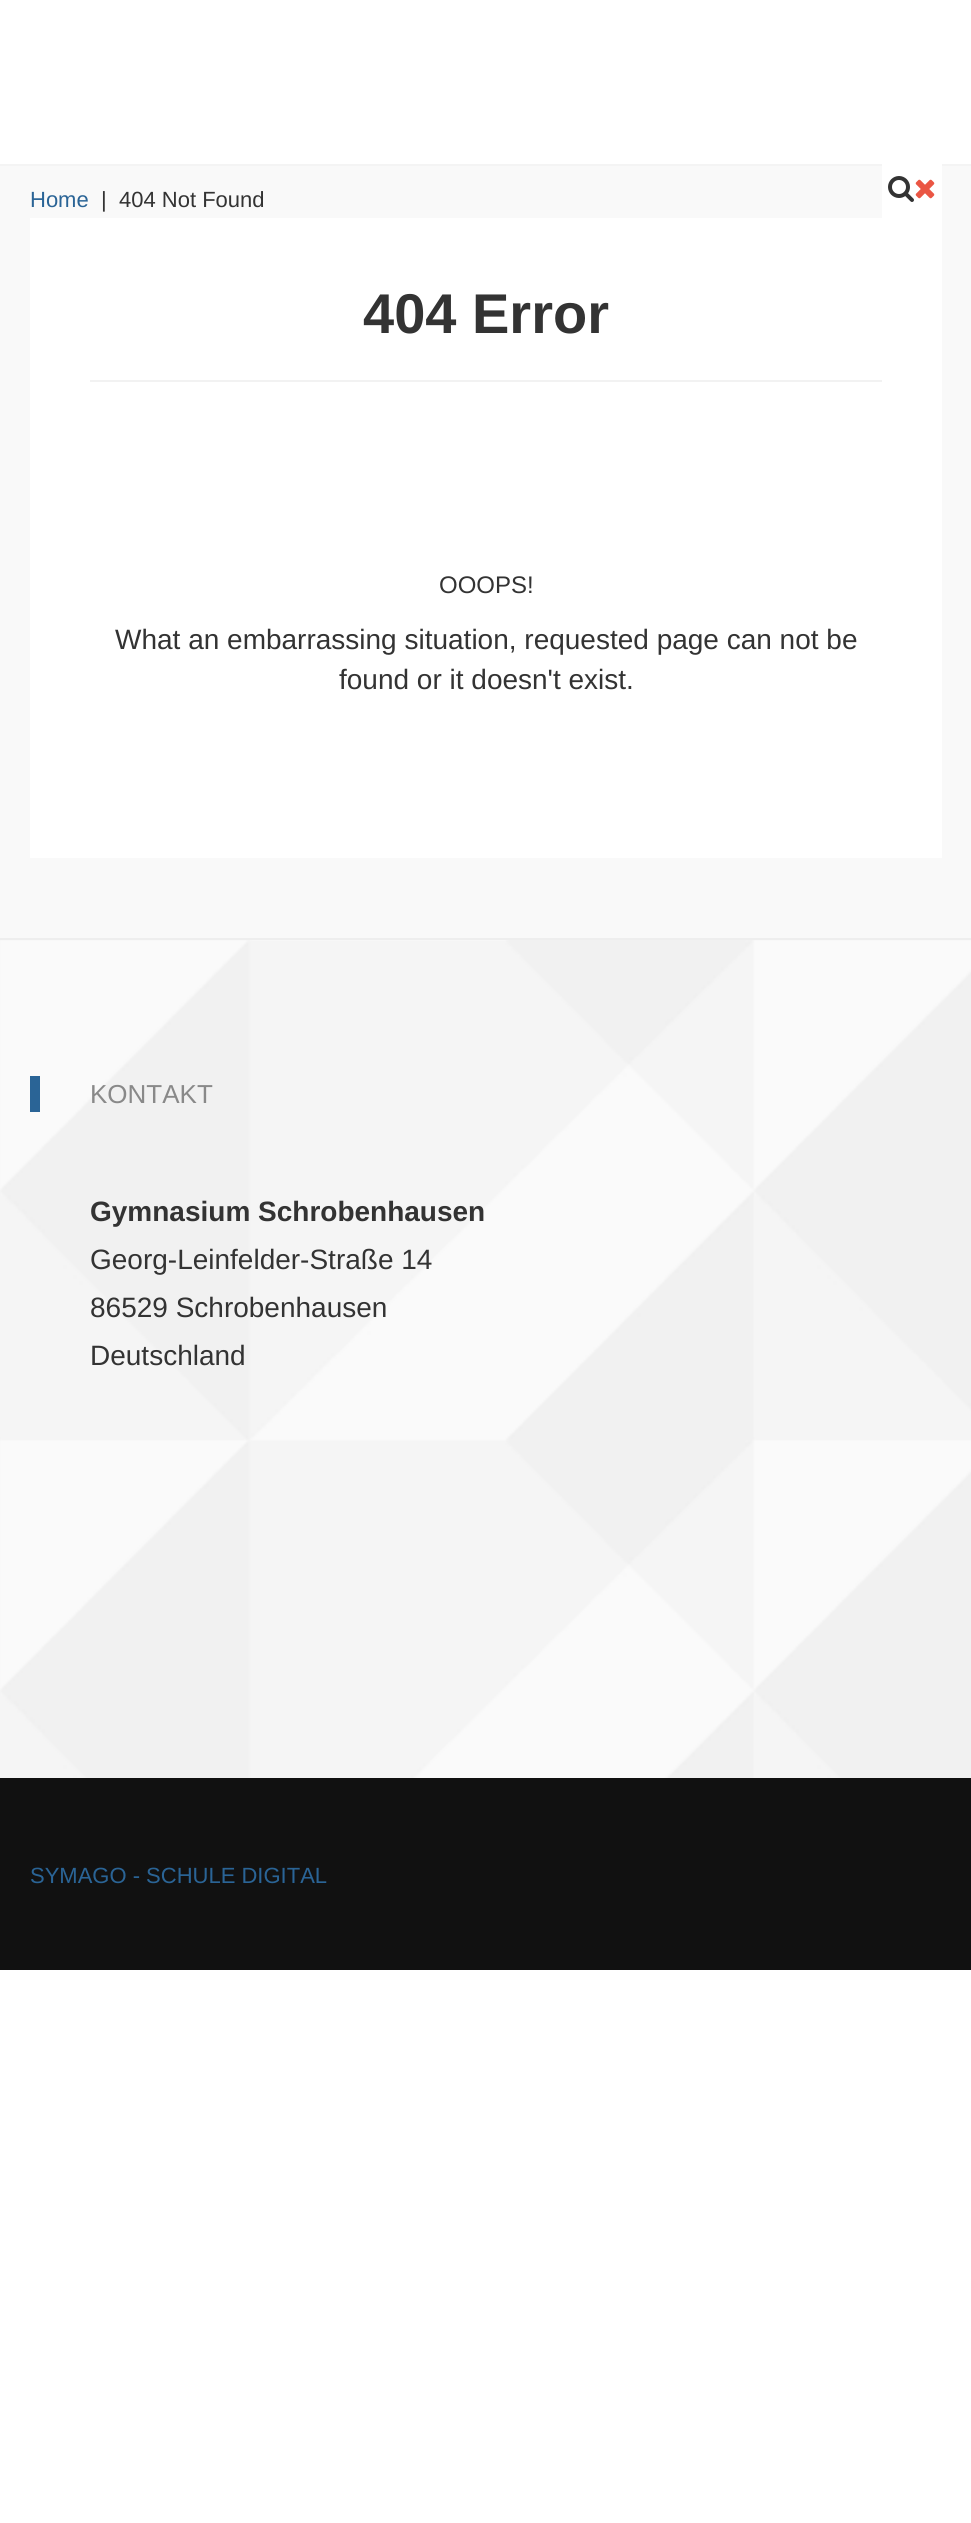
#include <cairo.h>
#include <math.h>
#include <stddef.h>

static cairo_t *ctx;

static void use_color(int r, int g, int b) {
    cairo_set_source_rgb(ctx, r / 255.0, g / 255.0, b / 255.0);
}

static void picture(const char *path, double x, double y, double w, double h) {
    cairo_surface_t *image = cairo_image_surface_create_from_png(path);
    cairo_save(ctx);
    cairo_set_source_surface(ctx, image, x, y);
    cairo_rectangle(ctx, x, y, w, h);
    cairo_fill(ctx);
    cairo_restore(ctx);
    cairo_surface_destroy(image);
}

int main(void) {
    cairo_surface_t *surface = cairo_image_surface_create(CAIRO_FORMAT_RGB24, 971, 2523);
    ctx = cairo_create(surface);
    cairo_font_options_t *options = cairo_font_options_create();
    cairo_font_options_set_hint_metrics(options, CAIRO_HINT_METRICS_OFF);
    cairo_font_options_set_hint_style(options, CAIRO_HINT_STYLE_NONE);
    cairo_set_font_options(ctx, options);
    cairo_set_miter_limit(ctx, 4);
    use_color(255, 255, 255);
    cairo_paint(ctx);
    use_color(249, 249, 249);
    cairo_rectangle(ctx, 0, 166, 971, 772);
    cairo_fill(ctx);
    use_color(244, 244, 244);
    cairo_rectangle(ctx, 0, 164, 971, 2);
    cairo_fill(ctx);
    cairo_select_font_face(ctx, "Liberation Sans", CAIRO_FONT_SLANT_NORMAL, CAIRO_FONT_WEIGHT_NORMAL);
    cairo_set_font_size(ctx, 22);
    use_color(42, 100, 150);
    cairo_move_to(ctx, 30, 207);
    cairo_show_text(ctx, "Home");
    use_color(51, 51, 51);
    cairo_move_to(ctx, 101, 207);
    cairo_show_text(ctx, "|");
    cairo_move_to(ctx, 119, 207);
    cairo_show_text(ctx, "404 Not Found");
    use_color(255, 255, 255);
    cairo_rectangle(ctx, 882, 164, 60, 54);
    cairo_fill(ctx);
    picture("img1.png", 888, 176, 26, 26);
    picture("img2.png", 915, 179, 20, 20);
    cairo_rectangle(ctx, 30, 218, 912, 640);
    cairo_fill(ctx);
    use_color(242, 242, 242);
    cairo_rectangle(ctx, 90, 380, 792, 2);
    cairo_fill(ctx);
    cairo_select_font_face(ctx, "Liberation Sans", CAIRO_FONT_SLANT_NORMAL, CAIRO_FONT_WEIGHT_BOLD);
    cairo_set_font_size(ctx, 56);
    use_color(51, 51, 51);
    cairo_move_to(ctx, 363, 333);
    cairo_show_text(ctx, "404 Error");
    cairo_select_font_face(ctx, "Liberation Sans", CAIRO_FONT_SLANT_NORMAL, CAIRO_FONT_WEIGHT_NORMAL);
    cairo_set_font_size(ctx, 24);
    cairo_move_to(ctx, 439, 593);
    cairo_show_text(ctx, "OOOPS!");
    cairo_set_font_size(ctx, 28);
    cairo_move_to(ctx, 115, 649);
    cairo_show_text(ctx, "What an embarrassing situation, requested page can not be");
    cairo_move_to(ctx, 339, 689);
    cairo_show_text(ctx, "found or it doesn't exist.");
    picture("img3.png", 0, 940, 971, 838);
    use_color(238, 238, 238);
    cairo_rectangle(ctx, 0, 938, 971, 2);
    cairo_fill(ctx);
    use_color(42, 100, 150);
    cairo_rectangle(ctx, 30, 1076, 10, 36);
    cairo_fill(ctx);
    cairo_set_font_size(ctx, 26);
    use_color(137, 137, 137);
    cairo_move_to(ctx, 90, 1103);
    cairo_show_text(ctx, "KONTAKT");
    cairo_select_font_face(ctx, "Liberation Sans", CAIRO_FONT_SLANT_NORMAL, CAIRO_FONT_WEIGHT_BOLD);
    cairo_set_font_size(ctx, 28);
    use_color(51, 51, 51);
    cairo_move_to(ctx, 90, 1221);
    cairo_show_text(ctx, "Gymnasium Schrobenhausen");
    cairo_select_font_face(ctx, "Liberation Sans", CAIRO_FONT_SLANT_NORMAL, CAIRO_FONT_WEIGHT_NORMAL);
    cairo_move_to(ctx, 90, 1269);
    cairo_show_text(ctx, "Georg-Leinfelder-Straße 14");
    cairo_move_to(ctx, 90, 1317);
    cairo_show_text(ctx, "86529 Schrobenhausen");
    cairo_move_to(ctx, 90, 1365);
    cairo_show_text(ctx, "Deutschland");
    use_color(17, 17, 17);
    cairo_rectangle(ctx, 0, 1778, 971, 192);
    cairo_fill(ctx);
    cairo_set_font_size(ctx, 22);
    use_color(42, 100, 150);
    cairo_move_to(ctx, 30, 1883);
    cairo_show_text(ctx, "SYMAGO - SCHULE DIGITAL");
    cairo_surface_write_to_png(surface, "result.png");
    cairo_font_options_destroy(options);
    cairo_destroy(ctx);
    cairo_surface_destroy(surface);
    return 0;
}
